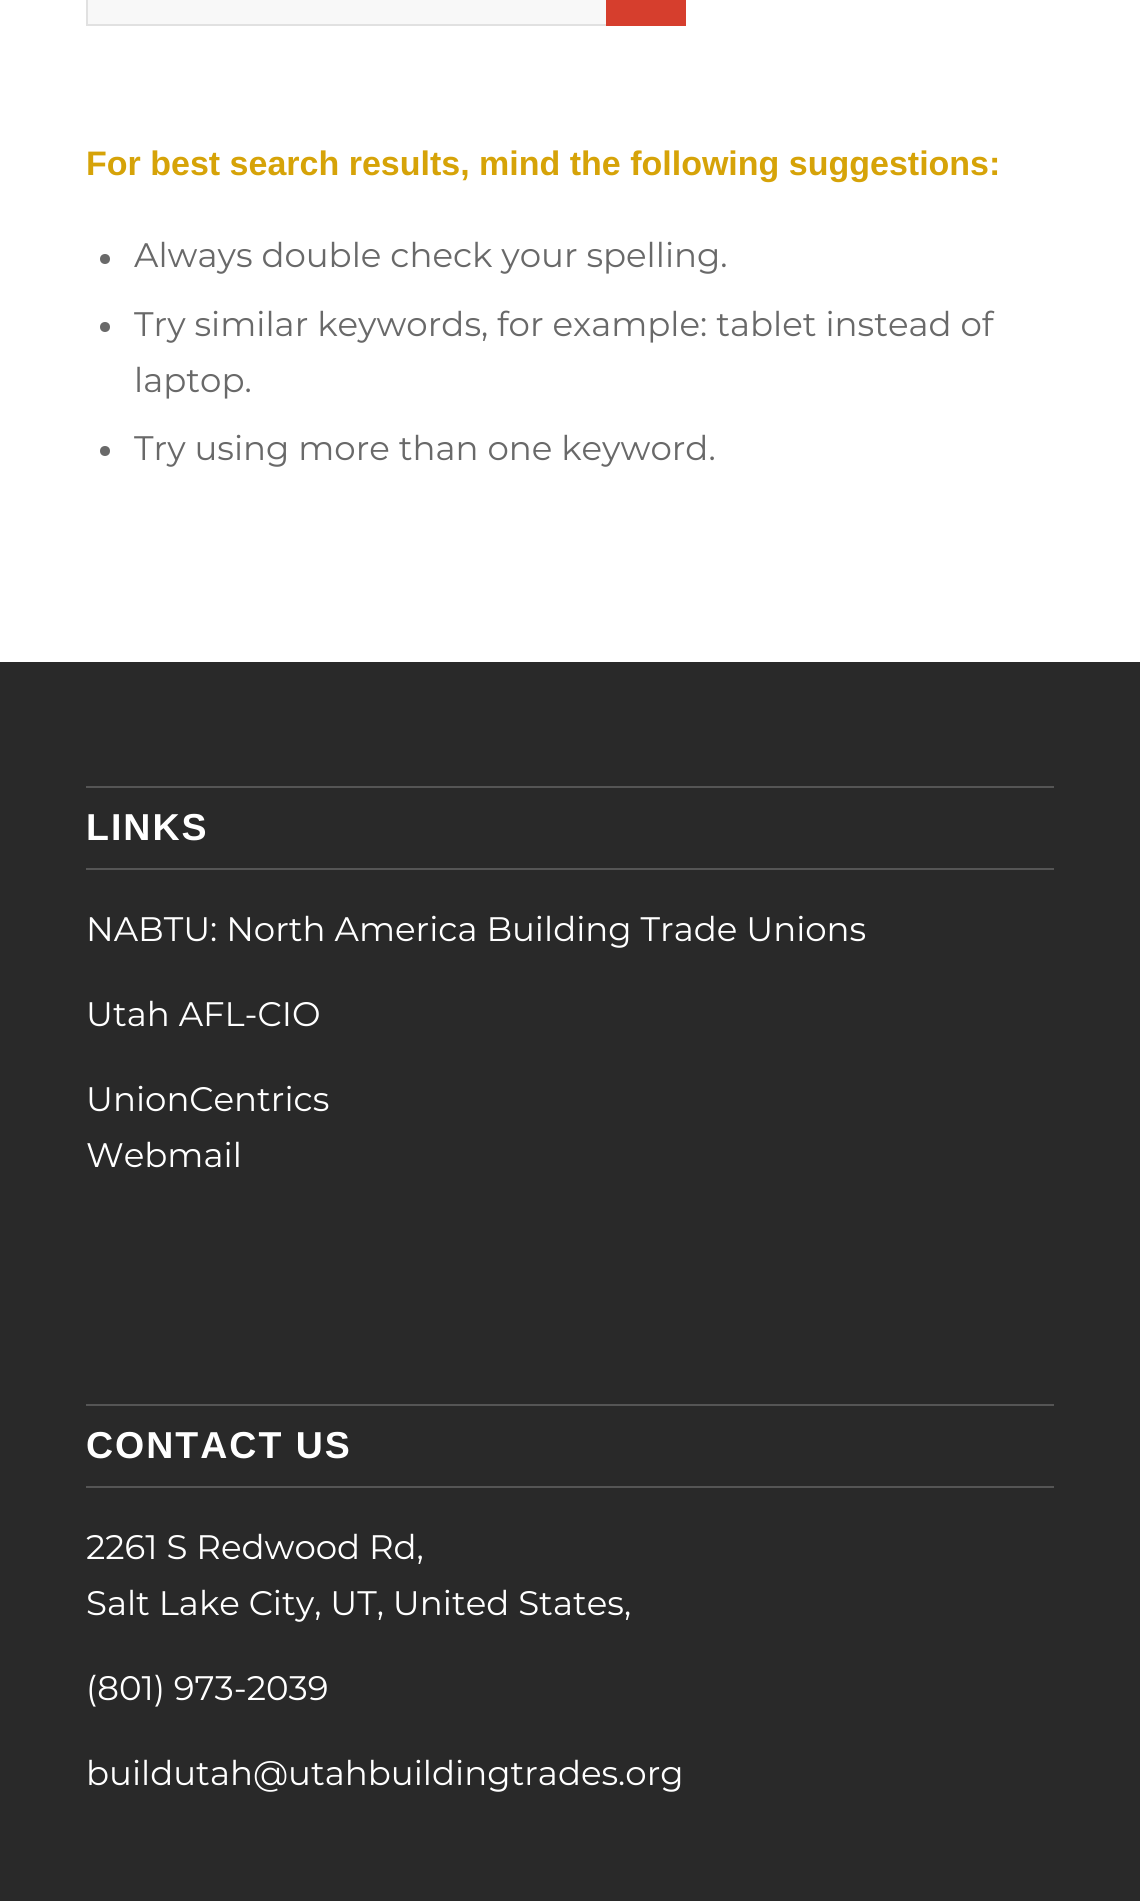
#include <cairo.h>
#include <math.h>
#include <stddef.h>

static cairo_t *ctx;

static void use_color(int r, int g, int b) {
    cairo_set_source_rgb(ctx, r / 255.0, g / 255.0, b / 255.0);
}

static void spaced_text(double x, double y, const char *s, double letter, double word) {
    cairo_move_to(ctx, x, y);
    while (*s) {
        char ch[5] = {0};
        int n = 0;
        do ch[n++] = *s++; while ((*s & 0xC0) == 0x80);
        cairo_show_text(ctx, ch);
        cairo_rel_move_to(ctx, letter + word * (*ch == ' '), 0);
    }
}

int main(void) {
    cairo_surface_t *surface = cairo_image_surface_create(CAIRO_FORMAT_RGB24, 1140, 1901);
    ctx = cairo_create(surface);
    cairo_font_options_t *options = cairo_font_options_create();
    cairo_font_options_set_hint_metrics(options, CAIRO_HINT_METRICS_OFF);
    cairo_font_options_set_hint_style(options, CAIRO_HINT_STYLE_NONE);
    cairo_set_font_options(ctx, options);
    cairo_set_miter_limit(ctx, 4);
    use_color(255, 255, 255);
    cairo_paint(ctx);
    use_color(248, 248, 248);
    cairo_rectangle(ctx, 88, 0, 518, 24);
    cairo_fill(ctx);
    cairo_rectangle(ctx, 87, -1, 598, 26);
    use_color(225, 225, 225);
    cairo_stroke(ctx);
    use_color(214, 62, 45);
    cairo_rectangle(ctx, 606, 0, 80, 26);
    cairo_fill(ctx);
    cairo_select_font_face(ctx, "Liberation Sans", CAIRO_FONT_SLANT_NORMAL, CAIRO_FONT_WEIGHT_BOLD);
    cairo_set_font_size(ctx, 34);
    use_color(214, 163, 8);
    cairo_move_to(ctx, 86, 175);
    cairo_show_text(ctx, "For best search results, mind the following suggestions:");
    use_color(105, 105, 105);
    cairo_new_path(ctx);
    cairo_arc(ctx, 105, 259, 5, 0, 2 * M_PI);
    cairo_fill(ctx);
    cairo_select_font_face(ctx, "Montserrat Thin", CAIRO_FONT_SLANT_NORMAL, CAIRO_FONT_WEIGHT_NORMAL);
    cairo_move_to(ctx, 134, 267);
    cairo_show_text(ctx, "Always double check your spelling.");
    cairo_new_path(ctx);
    cairo_arc(ctx, 105, 327, 5, 0, 2 * M_PI);
    cairo_fill(ctx);
    cairo_move_to(ctx, 134, 336);
    cairo_show_text(ctx, "Try similar keywords, for example: tablet instead of");
    cairo_move_to(ctx, 134, 392);
    cairo_show_text(ctx, "laptop.");
    cairo_new_path(ctx);
    cairo_arc(ctx, 105, 451, 5, 0, 2 * M_PI);
    cairo_fill(ctx);
    cairo_move_to(ctx, 134, 460);
    cairo_show_text(ctx, "Try using more than one keyword.");
    use_color(41, 41, 41);
    cairo_rectangle(ctx, 0, 662, 1140, 1239);
    cairo_fill(ctx);
    use_color(85, 85, 85);
    cairo_rectangle(ctx, 86, 786, 968, 2);
    cairo_fill(ctx);
    cairo_rectangle(ctx, 86, 868, 968, 2);
    cairo_fill(ctx);
    cairo_select_font_face(ctx, "Liberation Sans", CAIRO_FONT_SLANT_NORMAL, CAIRO_FONT_WEIGHT_BOLD);
    cairo_set_font_size(ctx, 37.5);
    use_color(255, 255, 255);
    spaced_text(86, 840, "LINKS", 2, 0);
    cairo_select_font_face(ctx, "Montserrat Thin", CAIRO_FONT_SLANT_NORMAL, CAIRO_FONT_WEIGHT_NORMAL);
    cairo_set_font_size(ctx, 34);
    cairo_move_to(ctx, 86, 941);
    cairo_show_text(ctx, "NABTU: North America Building Trade Unions");
    cairo_move_to(ctx, 86, 1026);
    cairo_show_text(ctx, "Utah AFL-CIO");
    cairo_move_to(ctx, 86, 1111);
    cairo_show_text(ctx, "UnionCentrics");
    cairo_move_to(ctx, 86, 1167);
    cairo_show_text(ctx, "Webmail");
    use_color(85, 85, 85);
    cairo_rectangle(ctx, 86, 1404, 968, 2);
    cairo_fill(ctx);
    cairo_rectangle(ctx, 86, 1486, 968, 2);
    cairo_fill(ctx);
    cairo_select_font_face(ctx, "Liberation Sans", CAIRO_FONT_SLANT_NORMAL, CAIRO_FONT_WEIGHT_BOLD);
    cairo_set_font_size(ctx, 37.5);
    use_color(255, 255, 255);
    spaced_text(86, 1458, "CONTACT US", 2, 0);
    cairo_select_font_face(ctx, "Montserrat Thin", CAIRO_FONT_SLANT_NORMAL, CAIRO_FONT_WEIGHT_NORMAL);
    cairo_set_font_size(ctx, 34);
    cairo_move_to(ctx, 86, 1559);
    cairo_show_text(ctx, "2261 S Redwood Rd,");
    cairo_move_to(ctx, 86, 1615);
    cairo_show_text(ctx, "Salt Lake City, UT, United States,");
    cairo_move_to(ctx, 86, 1700);
    cairo_show_text(ctx, "(801) 973-2039");
    cairo_move_to(ctx, 86, 1785);
    cairo_show_text(ctx, "buildutah@utahbuildingtrades.org");
    cairo_surface_write_to_png(surface, "result.png");
    cairo_font_options_destroy(options);
    cairo_destroy(ctx);
    cairo_surface_destroy(surface);
    return 0;
}
